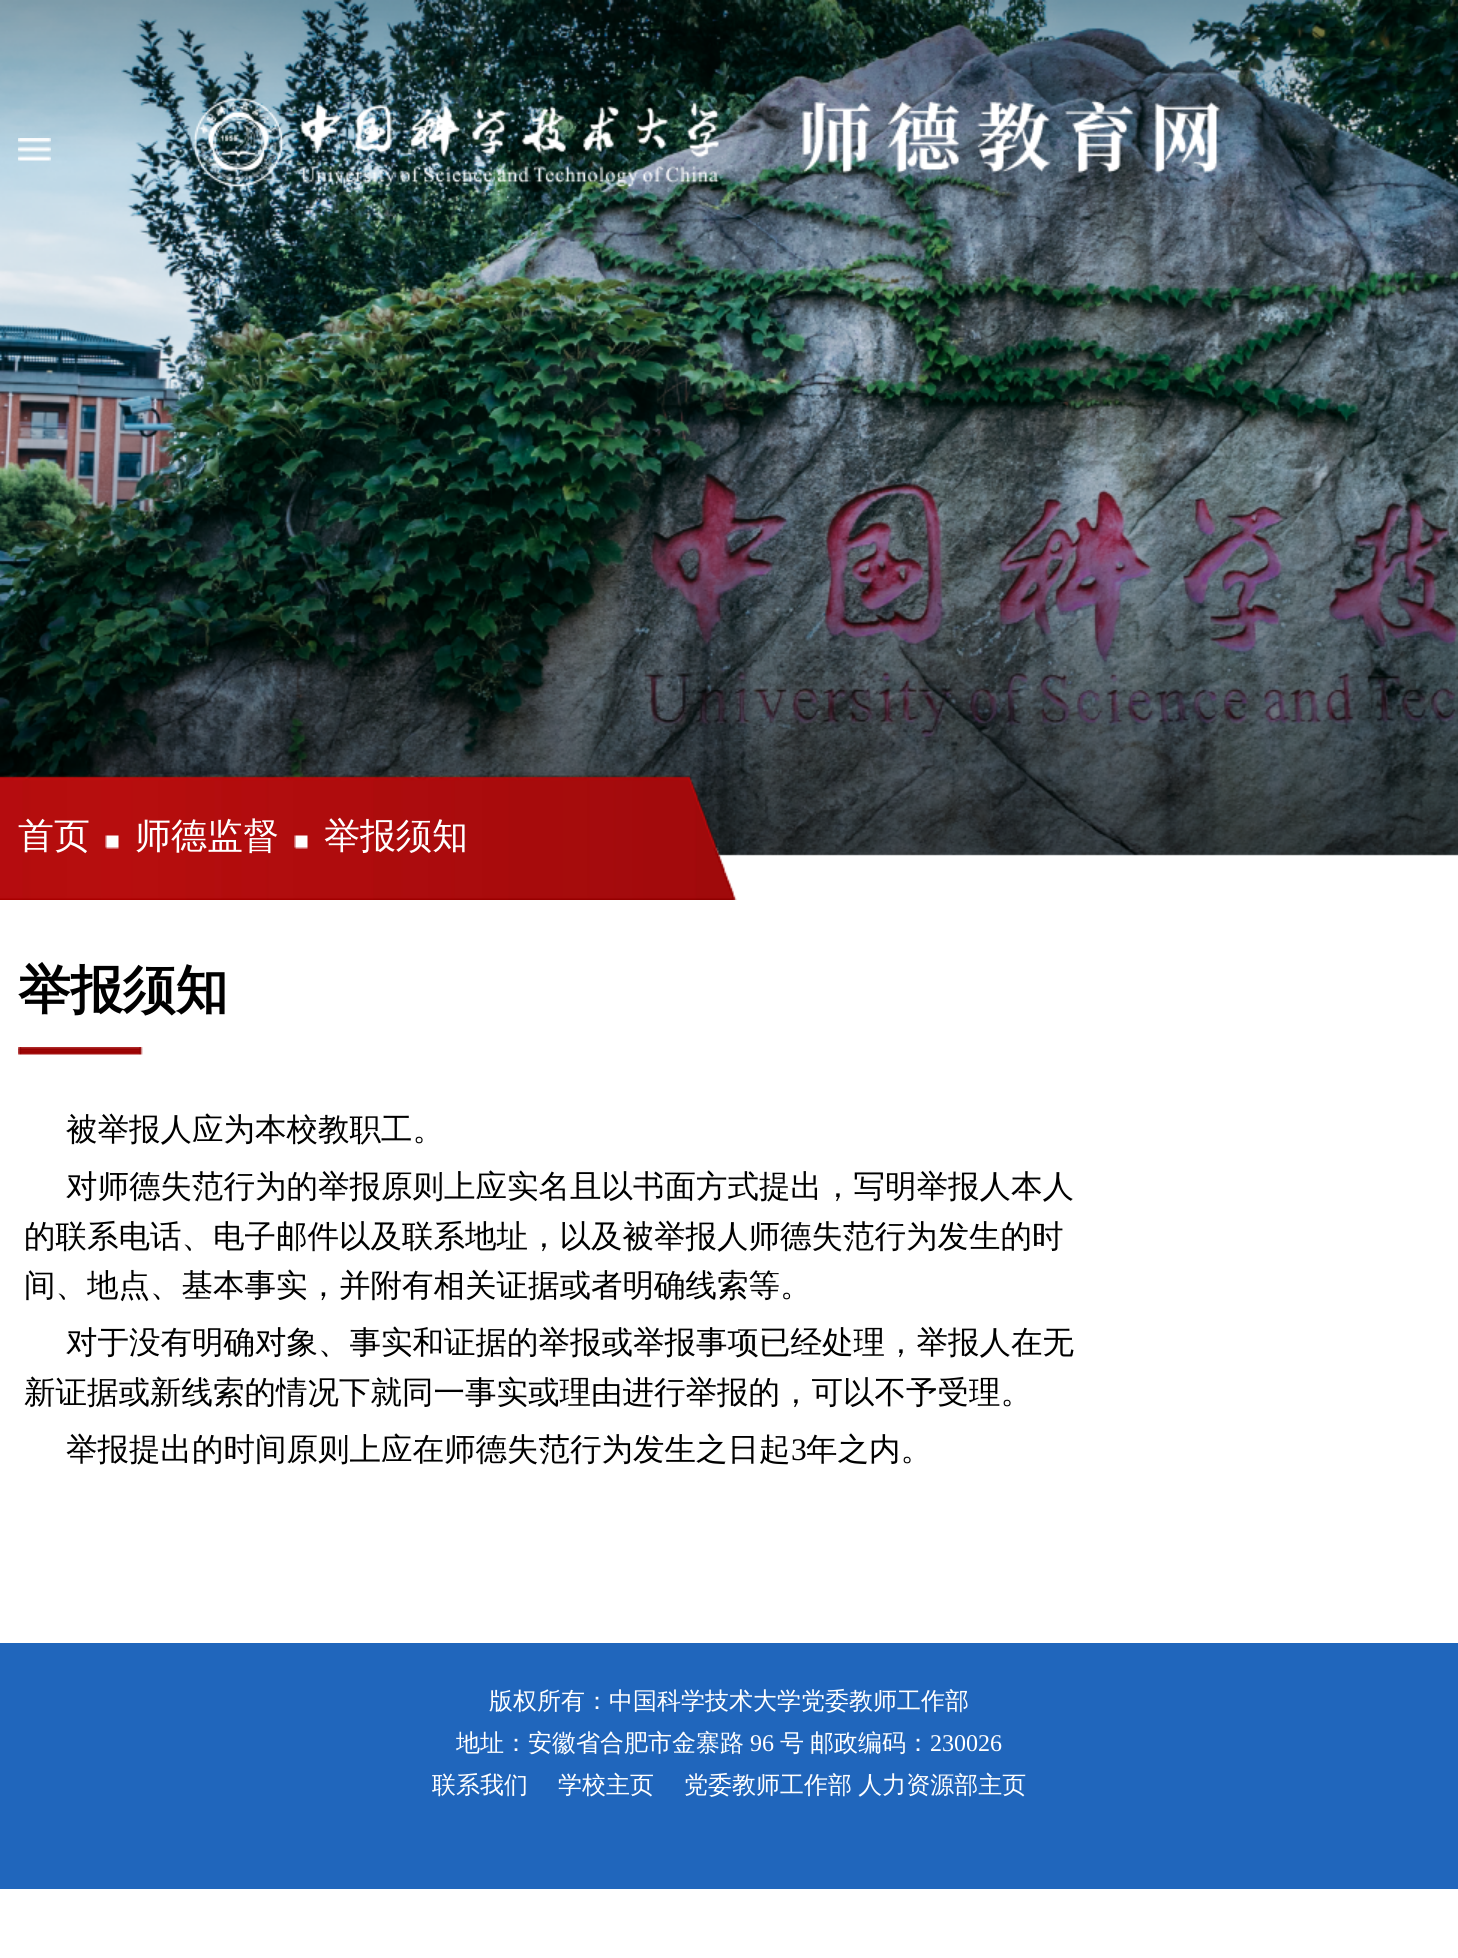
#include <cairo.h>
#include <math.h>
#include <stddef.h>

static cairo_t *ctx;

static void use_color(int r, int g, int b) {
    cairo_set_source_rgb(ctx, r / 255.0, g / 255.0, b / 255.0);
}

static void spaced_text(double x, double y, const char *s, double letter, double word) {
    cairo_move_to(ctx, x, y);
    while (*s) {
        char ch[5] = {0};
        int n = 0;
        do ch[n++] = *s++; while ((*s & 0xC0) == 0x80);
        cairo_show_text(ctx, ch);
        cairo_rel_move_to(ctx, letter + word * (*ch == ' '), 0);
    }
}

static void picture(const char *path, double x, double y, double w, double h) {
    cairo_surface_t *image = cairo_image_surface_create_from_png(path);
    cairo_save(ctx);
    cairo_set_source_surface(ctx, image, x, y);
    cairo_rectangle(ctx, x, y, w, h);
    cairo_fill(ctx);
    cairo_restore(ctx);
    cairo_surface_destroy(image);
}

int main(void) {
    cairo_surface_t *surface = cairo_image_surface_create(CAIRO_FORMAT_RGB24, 1458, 1958);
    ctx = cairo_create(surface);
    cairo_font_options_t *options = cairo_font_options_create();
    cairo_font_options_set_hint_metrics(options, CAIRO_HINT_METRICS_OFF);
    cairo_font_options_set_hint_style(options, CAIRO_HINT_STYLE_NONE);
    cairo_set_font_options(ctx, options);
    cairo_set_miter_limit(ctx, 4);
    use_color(255, 255, 255);
    cairo_paint(ctx);
    picture("img1.png", 0, 0, 1458, 900);
    picture("img2.png", 18, 138, 33, 23);
    picture("img3.png", 193, 97, 1027, 91);
    cairo_select_font_face(ctx, "WenQuanYi Zen Hei Medium", CAIRO_FONT_SLANT_NORMAL, CAIRO_FONT_WEIGHT_NORMAL);
    cairo_set_font_size(ctx, 36);
    use_color(255, 255, 255);
    cairo_move_to(ctx, 18, 848);
    cairo_show_text(ctx, "首页");
    picture("img4.png", 105, 835, 14, 14);
    cairo_move_to(ctx, 135, 848);
    cairo_show_text(ctx, "师德监督");
    picture("img5.png", 294, 835, 14, 14);
    cairo_move_to(ctx, 324, 848);
    cairo_show_text(ctx, "举报须知");
    picture("img6.png", 18, 1047, 125, 8);
    cairo_select_font_face(ctx, "WenQuanYi Zen Hei", CAIRO_FONT_SLANT_NORMAL, CAIRO_FONT_WEIGHT_BOLD);
    cairo_set_font_size(ctx, 52.5);
    use_color(0, 0, 0);
    cairo_move_to(ctx, 18, 1008);
    cairo_show_text(ctx, "举报须知");
    cairo_select_font_face(ctx, "WenQuanYi Zen Hei Medium", CAIRO_FONT_SLANT_NORMAL, CAIRO_FONT_WEIGHT_NORMAL);
    cairo_set_font_size(ctx, 31.5);
    cairo_move_to(ctx, 66, 1140);
    cairo_show_text(ctx, "被举报人应为本校教职工。");
    cairo_move_to(ctx, 66, 1197);
    cairo_show_text(ctx, "对师德失范行为的举报原则上应实名且以书面方式提出，写明举报人本人");
    cairo_move_to(ctx, 24, 1247);
    cairo_show_text(ctx, "的联系电话、电子邮件以及联系地址，以及被举报人师德失范行为发生的时");
    cairo_move_to(ctx, 24, 1296);
    cairo_show_text(ctx, "间、地点、基本事实，并附有相关证据或者明确线索等。");
    cairo_move_to(ctx, 66, 1353);
    cairo_show_text(ctx, "对于没有明确对象、事实和证据的举报或举报事项已经处理，举报人在无");
    cairo_move_to(ctx, 24, 1403);
    cairo_show_text(ctx, "新证据或新线索的情况下就同一事实或理由进行举报的，可以不予受理。");
    cairo_move_to(ctx, 66, 1460);
    cairo_show_text(ctx, "举报提出的时间原则上应在师德失范行为发生之日起");
    cairo_select_font_face(ctx, "Liberation Serif", CAIRO_FONT_SLANT_NORMAL, CAIRO_FONT_WEIGHT_NORMAL);
    cairo_move_to(ctx, 791, 1460);
    cairo_show_text(ctx, "3");
    cairo_select_font_face(ctx, "WenQuanYi Zen Hei Medium", CAIRO_FONT_SLANT_NORMAL, CAIRO_FONT_WEIGHT_NORMAL);
    cairo_move_to(ctx, 806, 1460);
    cairo_show_text(ctx, "年之内。");
    use_color(32, 102, 188);
    cairo_rectangle(ctx, 0, 1643, 1458, 246);
    cairo_fill(ctx);
    cairo_set_font_size(ctx, 24);
    use_color(255, 255, 255);
    cairo_move_to(ctx, 489, 1709);
    cairo_show_text(ctx, "版权所有：中国科学技术大学党委教师工作部");
    cairo_move_to(ctx, 456, 1751);
    cairo_show_text(ctx, "地址：安徽省合肥市金寨路");
    cairo_select_font_face(ctx, "Liberation Serif", CAIRO_FONT_SLANT_NORMAL, CAIRO_FONT_WEIGHT_NORMAL);
    cairo_move_to(ctx, 750, 1751);
    cairo_show_text(ctx, "96");
    cairo_select_font_face(ctx, "WenQuanYi Zen Hei Medium", CAIRO_FONT_SLANT_NORMAL, CAIRO_FONT_WEIGHT_NORMAL);
    cairo_move_to(ctx, 780, 1751);
    cairo_show_text(ctx, "号");
    cairo_move_to(ctx, 810, 1751);
    cairo_show_text(ctx, "邮政编码：");
    cairo_select_font_face(ctx, "Liberation Serif", CAIRO_FONT_SLANT_NORMAL, CAIRO_FONT_WEIGHT_NORMAL);
    cairo_move_to(ctx, 930, 1751);
    cairo_show_text(ctx, "230026");
    cairo_select_font_face(ctx, "WenQuanYi Zen Hei Medium", CAIRO_FONT_SLANT_NORMAL, CAIRO_FONT_WEIGHT_NORMAL);
    cairo_move_to(ctx, 432, 1793);
    cairo_show_text(ctx, "联系我们");
    cairo_move_to(ctx, 558, 1793);
    cairo_show_text(ctx, "学校主页");
    spaced_text(684, 1793, "党委教师工作部 人力资源部主页", 0, -1);
    cairo_surface_write_to_png(surface, "result.png");
    cairo_font_options_destroy(options);
    cairo_destroy(ctx);
    cairo_surface_destroy(surface);
    return 0;
}
